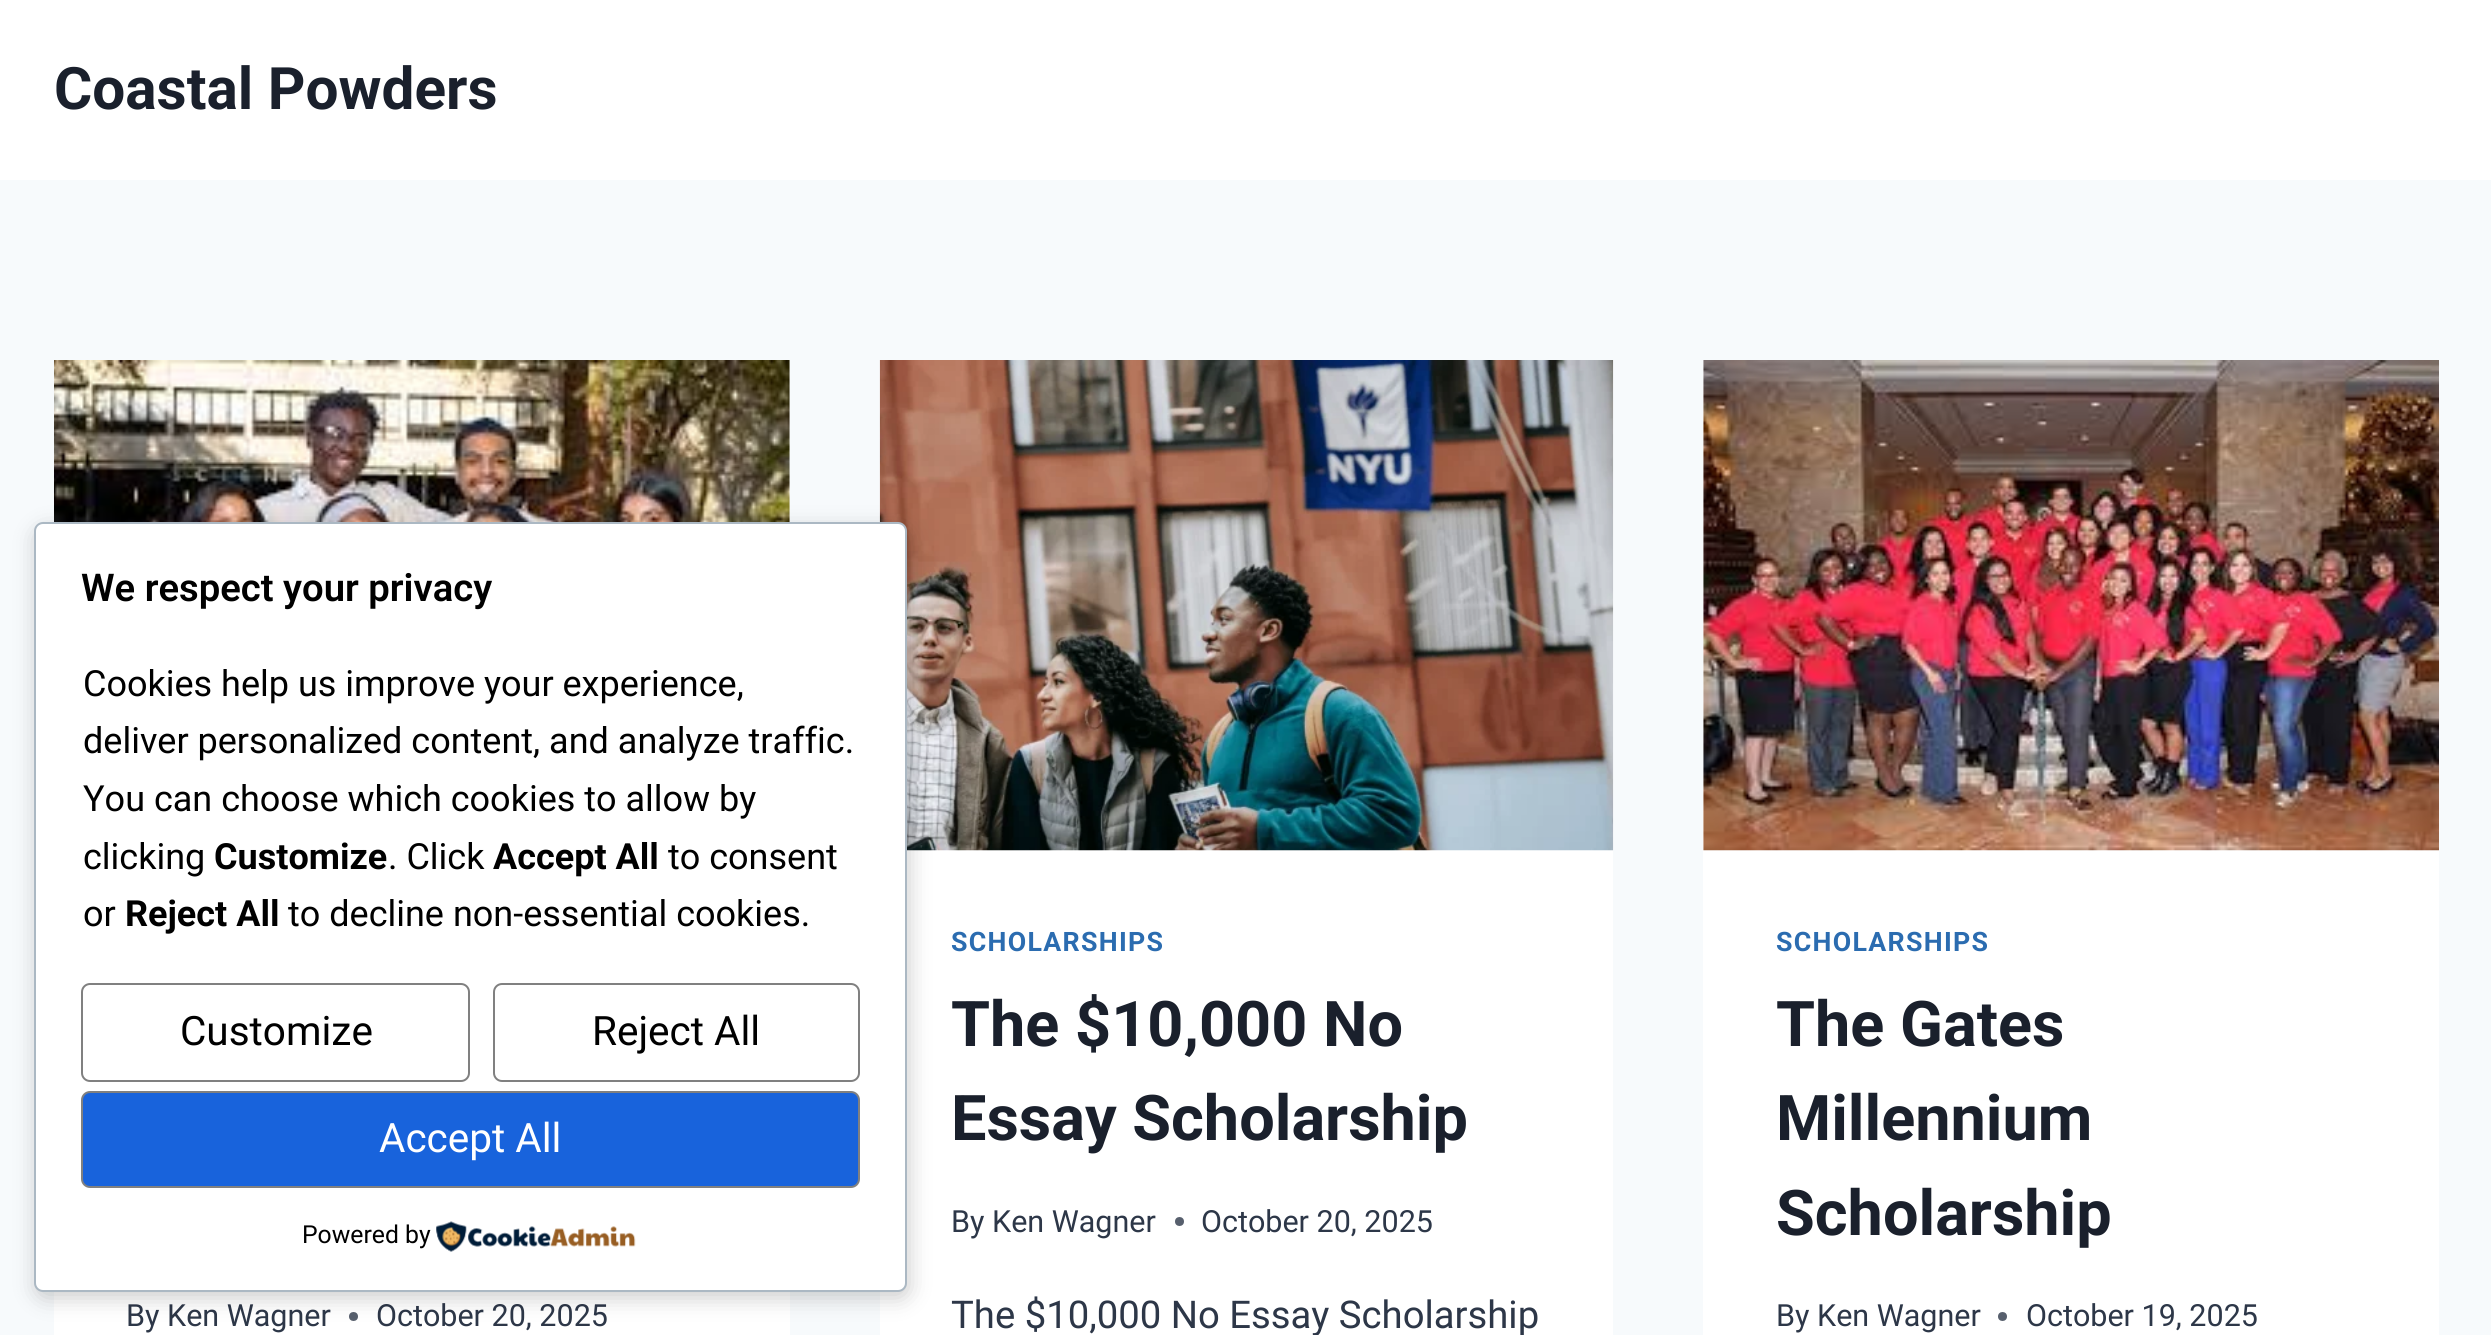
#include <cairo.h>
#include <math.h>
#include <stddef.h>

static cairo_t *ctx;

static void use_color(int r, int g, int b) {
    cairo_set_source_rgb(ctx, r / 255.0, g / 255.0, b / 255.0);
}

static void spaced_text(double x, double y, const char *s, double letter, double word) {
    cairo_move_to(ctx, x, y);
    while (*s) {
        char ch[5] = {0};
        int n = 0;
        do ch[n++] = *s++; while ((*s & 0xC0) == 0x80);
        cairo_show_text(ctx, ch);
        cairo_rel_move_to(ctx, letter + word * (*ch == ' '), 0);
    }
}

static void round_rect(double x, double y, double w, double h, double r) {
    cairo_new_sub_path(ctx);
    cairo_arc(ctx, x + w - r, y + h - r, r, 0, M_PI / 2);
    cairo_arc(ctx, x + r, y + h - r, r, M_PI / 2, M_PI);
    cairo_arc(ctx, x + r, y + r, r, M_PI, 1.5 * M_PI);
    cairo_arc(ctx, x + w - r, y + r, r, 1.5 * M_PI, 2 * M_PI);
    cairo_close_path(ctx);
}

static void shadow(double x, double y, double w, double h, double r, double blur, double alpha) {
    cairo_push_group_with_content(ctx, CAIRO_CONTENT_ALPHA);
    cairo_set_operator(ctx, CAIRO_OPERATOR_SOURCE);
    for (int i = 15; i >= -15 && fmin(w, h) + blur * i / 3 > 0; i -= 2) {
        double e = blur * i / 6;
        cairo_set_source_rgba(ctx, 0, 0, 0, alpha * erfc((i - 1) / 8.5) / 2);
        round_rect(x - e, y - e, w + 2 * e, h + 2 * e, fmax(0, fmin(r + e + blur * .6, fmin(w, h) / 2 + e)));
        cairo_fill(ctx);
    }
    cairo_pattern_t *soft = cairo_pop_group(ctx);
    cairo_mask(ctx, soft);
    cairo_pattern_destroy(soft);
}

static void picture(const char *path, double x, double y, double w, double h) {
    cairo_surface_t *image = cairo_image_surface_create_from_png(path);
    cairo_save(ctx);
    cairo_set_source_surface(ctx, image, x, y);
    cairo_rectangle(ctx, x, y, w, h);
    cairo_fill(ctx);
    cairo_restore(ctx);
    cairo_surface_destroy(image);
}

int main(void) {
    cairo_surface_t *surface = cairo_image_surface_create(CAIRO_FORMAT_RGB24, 2491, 1335);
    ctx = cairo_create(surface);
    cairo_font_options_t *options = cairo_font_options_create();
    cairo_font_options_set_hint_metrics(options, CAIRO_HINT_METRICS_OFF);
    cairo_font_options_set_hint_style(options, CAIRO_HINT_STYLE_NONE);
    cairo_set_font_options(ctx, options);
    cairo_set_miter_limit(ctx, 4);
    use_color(247, 250, 252);
    cairo_paint(ctx);
    use_color(255, 255, 255);
    cairo_rectangle(ctx, 0, 0, 2491, 180);
    cairo_fill(ctx);
    cairo_select_font_face(ctx, "Roboto", CAIRO_FONT_SLANT_NORMAL, CAIRO_FONT_WEIGHT_BOLD);
    cairo_set_font_size(ctx, 58.5);
    use_color(26, 32, 44);
    cairo_move_to(ctx, 54, 109);
    cairo_show_text(ctx, "Coastal Powders");
    use_color(255, 255, 255);
    round_rect(54, 360, 736, 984, 9);
    cairo_fill(ctx);
    picture("img1.png", 54, 360, 736, 162);
    cairo_select_font_face(ctx, "Roboto", CAIRO_FONT_SLANT_NORMAL, CAIRO_FONT_WEIGHT_NORMAL);
    cairo_set_font_size(ctx, 30.5);
    use_color(45, 55, 72);
    cairo_move_to(ctx, 126, 1326);
    cairo_show_text(ctx, "By");
    cairo_move_to(ctx, 167, 1326);
    cairo_show_text(ctx, "Ken Wagner");
    use_color(87, 95, 109);
    cairo_new_path(ctx);
    cairo_arc(ctx, 353.5, 1316.5, 4.5, 0, 2 * M_PI);
    cairo_fill(ctx);
    use_color(45, 55, 72);
    cairo_move_to(ctx, 376, 1326);
    cairo_show_text(ctx, "October 20, 2025");
    use_color(255, 255, 255);
    cairo_rectangle(ctx, 880, 850, 733, 485);
    cairo_fill(ctx);
    picture("img2.png", 879, 360, 735, 491);
    cairo_select_font_face(ctx, "Roboto", CAIRO_FONT_SLANT_NORMAL, CAIRO_FONT_WEIGHT_BOLD);
    cairo_set_font_size(ctx, 26.75);
    use_color(43, 108, 176);
    spaced_text(951, 951, "SCHOLARSHIPS", 1.3, 0);
    cairo_set_font_size(ctx, 63);
    use_color(26, 32, 44);
    cairo_move_to(ctx, 951, 1046);
    cairo_show_text(ctx, "The $10,000 No");
    cairo_move_to(ctx, 951, 1140);
    cairo_show_text(ctx, "Essay Scholarship");
    cairo_select_font_face(ctx, "Roboto", CAIRO_FONT_SLANT_NORMAL, CAIRO_FONT_WEIGHT_NORMAL);
    cairo_set_font_size(ctx, 30.5);
    use_color(45, 55, 72);
    cairo_move_to(ctx, 951, 1232);
    cairo_show_text(ctx, "By");
    cairo_move_to(ctx, 992, 1232);
    cairo_show_text(ctx, "Ken Wagner");
    use_color(87, 95, 109);
    cairo_new_path(ctx);
    cairo_arc(ctx, 1179.5, 1221.5, 4.5, 0, 2 * M_PI);
    cairo_fill(ctx);
    use_color(45, 55, 72);
    cairo_move_to(ctx, 1201, 1232);
    cairo_show_text(ctx, "October 20, 2025");
    cairo_set_font_size(ctx, 38.25);
    cairo_move_to(ctx, 951, 1328);
    cairo_show_text(ctx, "The $10,000 No Essay Scholarship");
    use_color(255, 255, 255);
    round_rect(1703, 360, 736, 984, 9);
    cairo_fill(ctx);
    picture("img3.png", 1703, 360, 736, 491);
    cairo_select_font_face(ctx, "Roboto", CAIRO_FONT_SLANT_NORMAL, CAIRO_FONT_WEIGHT_BOLD);
    cairo_set_font_size(ctx, 26.75);
    use_color(43, 108, 176);
    spaced_text(1776, 951, "SCHOLARSHIPS", 1.3, 0);
    cairo_set_font_size(ctx, 63);
    use_color(26, 32, 44);
    cairo_move_to(ctx, 1776, 1046);
    cairo_show_text(ctx, "The Gates");
    cairo_move_to(ctx, 1776, 1140);
    cairo_show_text(ctx, "Millennium");
    cairo_move_to(ctx, 1776, 1235);
    cairo_show_text(ctx, "Scholarship");
    cairo_select_font_face(ctx, "Roboto", CAIRO_FONT_SLANT_NORMAL, CAIRO_FONT_WEIGHT_NORMAL);
    cairo_set_font_size(ctx, 30.5);
    use_color(45, 55, 72);
    cairo_move_to(ctx, 1776, 1326);
    cairo_show_text(ctx, "By");
    cairo_move_to(ctx, 1817, 1326);
    cairo_show_text(ctx, "Ken Wagner");
    use_color(87, 95, 109);
    cairo_new_path(ctx);
    cairo_arc(ctx, 2002.5, 1316.5, 4.5, 0, 2 * M_PI);
    cairo_fill(ctx);
    use_color(45, 55, 72);
    cairo_move_to(ctx, 2026, 1326);
    cairo_show_text(ctx, "October 19, 2025");
    use_color(0, 0, 0);
    shadow(36, 529, 873, 769, 9, 11, 0.2);
    use_color(255, 255, 255);
    round_rect(35, 523, 871, 768, 8);
    cairo_fill_preserve(ctx);
    use_color(171, 184, 195);
    cairo_stroke(ctx);
    cairo_select_font_face(ctx, "Roboto SemiBold", CAIRO_FONT_SLANT_NORMAL, CAIRO_FONT_WEIGHT_NORMAL);
    cairo_set_font_size(ctx, 38.25);
    use_color(0, 0, 0);
    cairo_move_to(ctx, 81, 601);
    cairo_show_text(ctx, "We respect your privacy");
    cairo_select_font_face(ctx, "Roboto", CAIRO_FONT_SLANT_NORMAL, CAIRO_FONT_WEIGHT_NORMAL);
    cairo_set_font_size(ctx, 36);
    cairo_move_to(ctx, 83, 696);
    cairo_show_text(ctx, "Cookies help us improve your experience,");
    cairo_move_to(ctx, 83, 753);
    cairo_show_text(ctx, "deliver personalized content, and analyze traffic.");
    cairo_move_to(ctx, 83, 811);
    cairo_show_text(ctx, "You can choose which cookies to allow by");
    cairo_move_to(ctx, 83, 869);
    cairo_show_text(ctx, "clicking");
    cairo_select_font_face(ctx, "Roboto", CAIRO_FONT_SLANT_NORMAL, CAIRO_FONT_WEIGHT_BOLD);
    cairo_move_to(ctx, 214, 869);
    cairo_show_text(ctx, "Customize");
    cairo_select_font_face(ctx, "Roboto", CAIRO_FONT_SLANT_NORMAL, CAIRO_FONT_WEIGHT_NORMAL);
    cairo_move_to(ctx, 388, 869);
    cairo_show_text(ctx, ". Click");
    cairo_select_font_face(ctx, "Roboto", CAIRO_FONT_SLANT_NORMAL, CAIRO_FONT_WEIGHT_BOLD);
    cairo_move_to(ctx, 493, 869);
    cairo_show_text(ctx, "Accept All");
    cairo_select_font_face(ctx, "Roboto", CAIRO_FONT_SLANT_NORMAL, CAIRO_FONT_WEIGHT_NORMAL);
    cairo_move_to(ctx, 668, 869);
    cairo_show_text(ctx, "to consent");
    cairo_move_to(ctx, 83, 926);
    cairo_show_text(ctx, "or");
    cairo_select_font_face(ctx, "Roboto", CAIRO_FONT_SLANT_NORMAL, CAIRO_FONT_WEIGHT_BOLD);
    cairo_move_to(ctx, 125, 926);
    cairo_show_text(ctx, "Reject All");
    cairo_select_font_face(ctx, "Roboto", CAIRO_FONT_SLANT_NORMAL, CAIRO_FONT_WEIGHT_NORMAL);
    cairo_move_to(ctx, 288, 926);
    cairo_show_text(ctx, "to decline non-essential cookies.");
    round_rect(82, 984, 387, 97, 8);
    use_color(128, 128, 128);
    cairo_stroke(ctx);
    cairo_set_font_size(ctx, 40.5);
    use_color(0, 0, 0);
    cairo_move_to(ctx, 180, 1045);
    cairo_show_text(ctx, "Customize");
    round_rect(494, 984, 365, 97, 8);
    use_color(128, 128, 128);
    cairo_stroke(ctx);
    use_color(0, 0, 0);
    cairo_move_to(ctx, 592, 1045);
    cairo_show_text(ctx, "Reject All");
    use_color(24, 99, 220);
    round_rect(82, 1092, 777, 95, 8);
    cairo_fill_preserve(ctx);
    use_color(128, 128, 128);
    cairo_stroke(ctx);
    use_color(255, 255, 255);
    cairo_move_to(ctx, 379, 1152);
    cairo_show_text(ctx, "Accept All");
    cairo_set_font_size(ctx, 24.75);
    use_color(0, 0, 0);
    cairo_move_to(ctx, 302, 1243);
    cairo_show_text(ctx, "Powered by");
    picture("img4.png", 436, 1221, 200, 31);
    cairo_surface_write_to_png(surface, "result.png");
    cairo_font_options_destroy(options);
    cairo_destroy(ctx);
    cairo_surface_destroy(surface);
    return 0;
}
